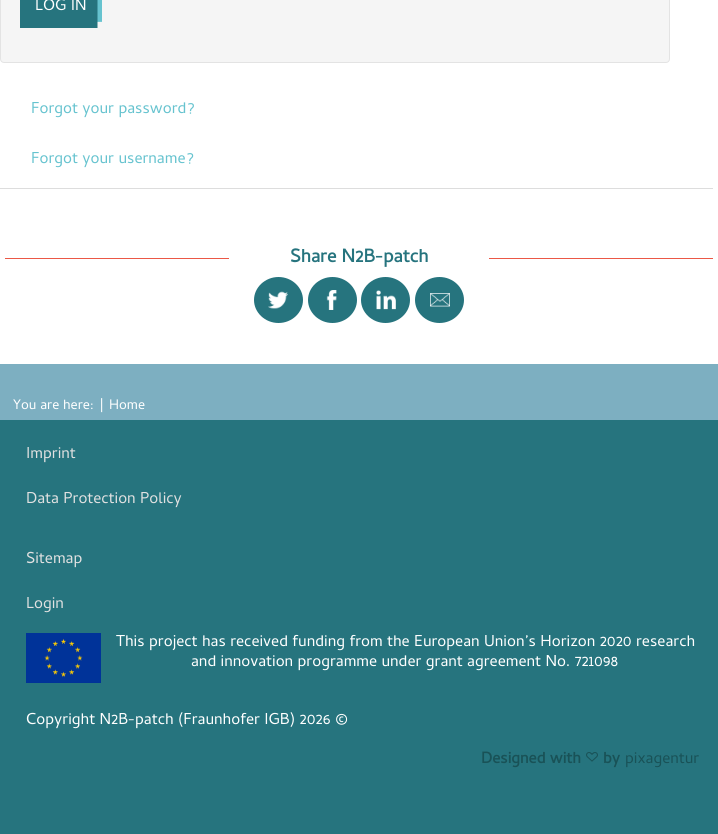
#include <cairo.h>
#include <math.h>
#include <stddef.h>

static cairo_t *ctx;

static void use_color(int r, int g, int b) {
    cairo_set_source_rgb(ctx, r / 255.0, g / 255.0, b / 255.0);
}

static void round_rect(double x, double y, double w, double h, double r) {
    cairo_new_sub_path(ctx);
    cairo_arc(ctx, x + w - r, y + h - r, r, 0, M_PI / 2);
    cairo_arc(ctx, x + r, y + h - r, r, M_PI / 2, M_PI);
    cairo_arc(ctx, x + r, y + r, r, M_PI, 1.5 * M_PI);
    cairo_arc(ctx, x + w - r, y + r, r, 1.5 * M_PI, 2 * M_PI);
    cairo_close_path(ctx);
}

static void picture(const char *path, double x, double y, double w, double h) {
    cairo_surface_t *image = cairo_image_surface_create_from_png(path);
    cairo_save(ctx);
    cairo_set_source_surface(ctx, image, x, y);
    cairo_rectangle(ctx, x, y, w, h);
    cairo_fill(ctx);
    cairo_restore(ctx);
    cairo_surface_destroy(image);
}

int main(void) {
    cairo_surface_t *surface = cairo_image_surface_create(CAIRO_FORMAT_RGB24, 718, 834);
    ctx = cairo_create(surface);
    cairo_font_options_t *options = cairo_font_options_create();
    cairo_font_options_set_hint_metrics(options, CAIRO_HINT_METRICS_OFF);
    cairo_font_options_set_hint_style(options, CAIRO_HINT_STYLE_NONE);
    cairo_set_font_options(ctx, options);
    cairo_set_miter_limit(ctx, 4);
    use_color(255, 255, 255);
    cairo_paint(ctx);
    use_color(245, 245, 245);
    round_rect(0.5, -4.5, 669, 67, 3.5);
    cairo_fill_preserve(ctx);
    use_color(227, 227, 227);
    cairo_set_line_width(ctx, 1);
    cairo_stroke(ctx);
    picture("img1.png", 20, 0, 82, 28);
    cairo_select_font_face(ctx, "Cambay", CAIRO_FONT_SLANT_NORMAL, CAIRO_FONT_WEIGHT_NORMAL);
    cairo_set_font_size(ctx, 16);
    use_color(255, 255, 255);
    cairo_move_to(ctx, 35, 10);
    cairo_show_text(ctx, "LOG IN");
    use_color(221, 221, 221);
    cairo_rectangle(ctx, 0, 188, 713, 1);
    cairo_fill(ctx);
    use_color(102, 195, 207);
    cairo_move_to(ctx, 31, 113);
    cairo_show_text(ctx, "Forgot your password?");
    cairo_move_to(ctx, 31, 163);
    cairo_show_text(ctx, "Forgot your username?");
    use_color(235, 88, 70);
    cairo_rectangle(ctx, 5, 258, 224, 1);
    cairo_fill(ctx);
    cairo_select_font_face(ctx, "Cambay", CAIRO_FONT_SLANT_NORMAL, CAIRO_FONT_WEIGHT_BOLD);
    cairo_set_font_size(ctx, 18.75);
    use_color(38, 116, 126);
    cairo_move_to(ctx, 290, 262);
    cairo_show_text(ctx, "Share N2B-patch");
    use_color(235, 88, 70);
    cairo_rectangle(ctx, 489, 258, 224, 1);
    cairo_fill(ctx);
    use_color(38, 116, 126);
    cairo_new_path(ctx);
    cairo_move_to(ctx, 278.5, 277);
    cairo_curve_to(ctx, 292, 277, 303, 287.5, 303, 300);
    cairo_curve_to(ctx, 303, 312.5, 292, 323, 278.5, 323);
    cairo_curve_to(ctx, 265, 323, 254, 312.5, 254, 300);
    cairo_curve_to(ctx, 254, 287.5, 265, 277, 278.5, 277);
    cairo_close_path(ctx);
    cairo_fill(ctx);
    picture("img2.png", 268, 291, 20, 18);
    cairo_new_path(ctx);
    cairo_move_to(ctx, 332.5, 277);
    cairo_curve_to(ctx, 346, 277, 357, 287.5, 357, 300);
    cairo_curve_to(ctx, 357, 312.5, 346, 323, 332.5, 323);
    cairo_curve_to(ctx, 319, 323, 308, 312.5, 308, 300);
    cairo_curve_to(ctx, 308, 287.5, 319, 277, 332.5, 277);
    cairo_close_path(ctx);
    cairo_fill(ctx);
    picture("img3.png", 326, 290, 11, 20);
    cairo_new_path(ctx);
    cairo_move_to(ctx, 385.5, 277);
    cairo_curve_to(ctx, 399, 277, 410, 287.5, 410, 300);
    cairo_curve_to(ctx, 410, 312.5, 399, 323, 385.5, 323);
    cairo_curve_to(ctx, 372, 323, 361, 312.5, 361, 300);
    cairo_curve_to(ctx, 361, 287.5, 372, 277, 385.5, 277);
    cairo_close_path(ctx);
    cairo_fill(ctx);
    picture("img4.png", 376, 290, 20, 20);
    cairo_new_path(ctx);
    cairo_move_to(ctx, 439.5, 277);
    cairo_curve_to(ctx, 453, 277, 464, 287.5, 464, 300);
    cairo_curve_to(ctx, 464, 312.5, 453, 323, 439.5, 323);
    cairo_curve_to(ctx, 426, 323, 415, 312.5, 415, 300);
    cairo_curve_to(ctx, 415, 287.5, 426, 277, 439.5, 277);
    cairo_close_path(ctx);
    cairo_fill(ctx);
    picture("img5.png", 430, 293, 20, 14);
    use_color(125, 175, 193);
    cairo_rectangle(ctx, 0, 364, 718, 56);
    cairo_fill(ctx);
    cairo_select_font_face(ctx, "Cambay", CAIRO_FONT_SLANT_NORMAL, CAIRO_FONT_WEIGHT_NORMAL);
    cairo_set_font_size(ctx, 14);
    use_color(255, 255, 255);
    cairo_move_to(ctx, 13, 409);
    cairo_show_text(ctx, "You are here:");
    cairo_move_to(ctx, 99, 409);
    cairo_show_text(ctx, "|");
    cairo_move_to(ctx, 109, 409);
    cairo_show_text(ctx, "Home");
    use_color(38, 116, 126);
    cairo_rectangle(ctx, 0, 420, 718, 414);
    cairo_fill(ctx);
    cairo_set_font_size(ctx, 16);
    use_color(225, 225, 225);
    cairo_move_to(ctx, 26, 458);
    cairo_show_text(ctx, "Imprint");
    cairo_move_to(ctx, 26, 503);
    cairo_show_text(ctx, "Data Protection Policy");
    cairo_move_to(ctx, 26, 563);
    cairo_show_text(ctx, "Sitemap");
    cairo_move_to(ctx, 26, 608);
    cairo_show_text(ctx, "Login");
    picture("img6.png", 26, 633, 75, 50);
    use_color(255, 255, 255);
    cairo_move_to(ctx, 116, 646);
    cairo_show_text(ctx, "This project has received funding from the European Union’s Horizon 2020 research");
    cairo_move_to(ctx, 191, 666);
    cairo_show_text(ctx, "and innovation programme under grant agreement No. 721098");
    cairo_move_to(ctx, 26, 724);
    cairo_show_text(ctx, "Copyright N2B-patch (Fraunhofer IGB) 2026 ©");
    cairo_select_font_face(ctx, "Cambay", CAIRO_FONT_SLANT_NORMAL, CAIRO_FONT_WEIGHT_BOLD);
    use_color(25, 82, 87);
    cairo_move_to(ctx, 481, 763);
    cairo_show_text(ctx, "Designed with");
    picture("img7.png", 586, 752, 12, 10);
    cairo_move_to(ctx, 603, 763);
    cairo_show_text(ctx, "by");
    cairo_select_font_face(ctx, "Cambay", CAIRO_FONT_SLANT_NORMAL, CAIRO_FONT_WEIGHT_NORMAL);
    cairo_move_to(ctx, 625, 763);
    cairo_show_text(ctx, "pixagentur");
    cairo_surface_write_to_png(surface, "result.png");
    cairo_font_options_destroy(options);
    cairo_destroy(ctx);
    cairo_surface_destroy(surface);
    return 0;
}
